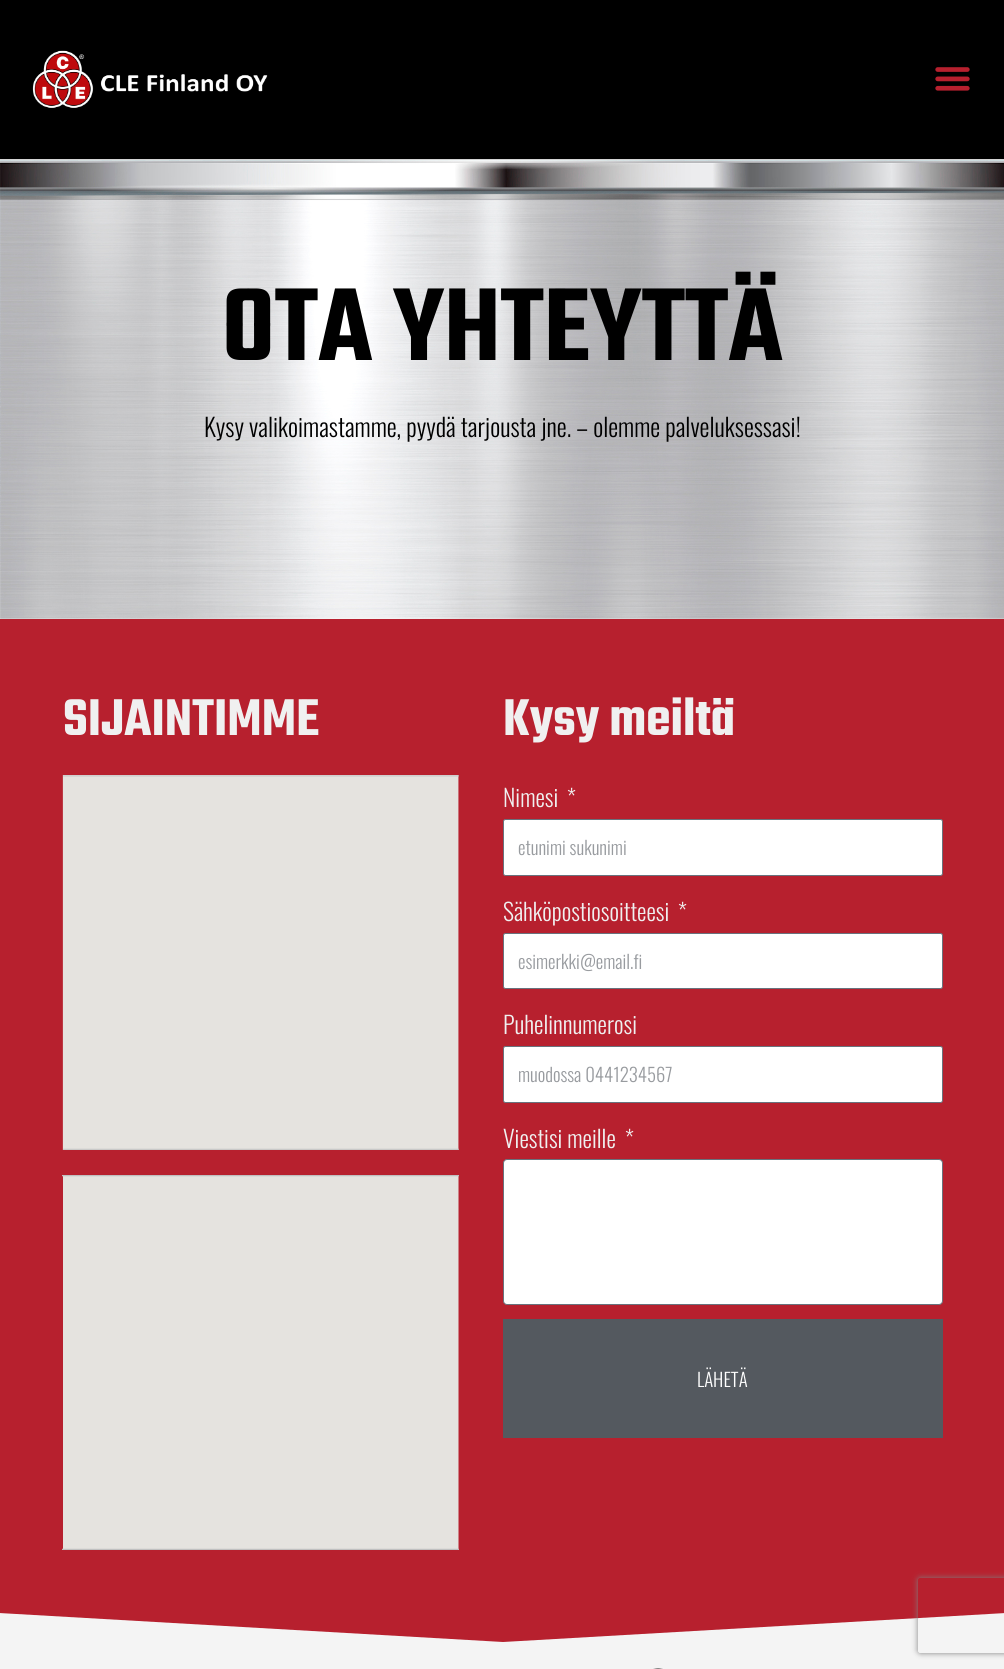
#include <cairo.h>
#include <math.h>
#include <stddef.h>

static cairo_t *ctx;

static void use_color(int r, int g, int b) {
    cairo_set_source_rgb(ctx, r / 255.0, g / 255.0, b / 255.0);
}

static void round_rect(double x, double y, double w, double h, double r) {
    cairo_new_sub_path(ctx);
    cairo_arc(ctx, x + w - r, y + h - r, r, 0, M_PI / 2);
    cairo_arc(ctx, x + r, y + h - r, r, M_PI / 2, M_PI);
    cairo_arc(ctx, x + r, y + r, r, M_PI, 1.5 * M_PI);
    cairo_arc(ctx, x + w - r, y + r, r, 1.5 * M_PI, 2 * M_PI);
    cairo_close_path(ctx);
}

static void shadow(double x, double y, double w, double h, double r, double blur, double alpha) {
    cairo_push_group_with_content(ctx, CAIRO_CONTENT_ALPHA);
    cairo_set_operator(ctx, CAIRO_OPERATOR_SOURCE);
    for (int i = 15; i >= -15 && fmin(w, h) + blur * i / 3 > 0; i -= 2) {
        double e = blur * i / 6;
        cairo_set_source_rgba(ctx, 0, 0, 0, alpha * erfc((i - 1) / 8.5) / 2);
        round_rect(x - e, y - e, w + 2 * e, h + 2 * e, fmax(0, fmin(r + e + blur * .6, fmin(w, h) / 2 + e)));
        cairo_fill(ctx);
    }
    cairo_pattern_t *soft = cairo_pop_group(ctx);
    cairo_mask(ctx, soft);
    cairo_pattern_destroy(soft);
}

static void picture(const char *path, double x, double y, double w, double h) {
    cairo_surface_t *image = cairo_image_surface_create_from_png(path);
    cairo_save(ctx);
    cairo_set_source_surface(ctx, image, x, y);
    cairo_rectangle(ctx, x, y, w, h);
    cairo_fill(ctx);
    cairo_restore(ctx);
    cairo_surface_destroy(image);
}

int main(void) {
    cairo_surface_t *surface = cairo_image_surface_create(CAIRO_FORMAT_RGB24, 1004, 1669);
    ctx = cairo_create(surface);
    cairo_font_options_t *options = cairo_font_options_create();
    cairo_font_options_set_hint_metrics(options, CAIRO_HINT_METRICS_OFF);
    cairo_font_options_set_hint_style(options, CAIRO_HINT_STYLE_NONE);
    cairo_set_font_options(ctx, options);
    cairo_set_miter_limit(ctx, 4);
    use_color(255, 255, 255);
    cairo_paint(ctx);
    use_color(0, 0, 0);
    cairo_rectangle(ctx, 0, 0, 1004, 159);
    cairo_fill(ctx);
    use_color(211, 211, 211);
    cairo_rectangle(ctx, 0, 159, 1004, 1);
    cairo_fill(ctx);
    picture("img1.png", 32, 50, 236, 58);
    picture("img2.png", 935, 67, 35, 24);
    picture("img3.png", 0, 160, 1004, 459);
    cairo_select_font_face(ctx, "Teko SemiBold", CAIRO_FONT_SLANT_NORMAL, CAIRO_FONT_WEIGHT_NORMAL);
    cairo_set_font_size(ctx, 112.5);
    use_color(0, 0, 0);
    cairo_move_to(ctx, 222, 360);
    cairo_show_text(ctx, "OTA YHTEYTTÄ");
    cairo_select_font_face(ctx, "Oswald Light", CAIRO_FONT_SLANT_NORMAL, CAIRO_FONT_WEIGHT_NORMAL);
    cairo_set_font_size(ctx, 25);
    cairo_move_to(ctx, 204, 437);
    cairo_show_text(ctx, "Kysy valikoimastamme, pyydä tarjousta jne. – olemme palveluksessasi!");
    use_color(183, 32, 46);
    cairo_rectangle(ctx, 0, 619, 1004, 992);
    cairo_fill(ctx);
    cairo_select_font_face(ctx, "Teko SemiBold", CAIRO_FONT_SLANT_NORMAL, CAIRO_FONT_WEIGHT_NORMAL);
    cairo_set_font_size(ctx, 56.25);
    use_color(240, 240, 240);
    cairo_move_to(ctx, 63, 735);
    cairo_show_text(ctx, "SIJAINTIMME");
    picture("img4.png", 62, 775, 397, 375);
    picture("img5.png", 62, 1175, 397, 375);
    cairo_move_to(ctx, 503, 735);
    cairo_show_text(ctx, "Kysy meiltä");
    cairo_select_font_face(ctx, "Oswald Light", CAIRO_FONT_SLANT_NORMAL, CAIRO_FONT_WEIGHT_NORMAL);
    cairo_set_font_size(ctx, 23.75);
    cairo_move_to(ctx, 503, 807);
    cairo_show_text(ctx, "Nimesi");
    cairo_move_to(ctx, 567, 807);
    cairo_show_text(ctx, "*");
    use_color(255, 255, 255);
    round_rect(503.5, 819.5, 439, 56, 2);
    cairo_fill_preserve(ctx);
    use_color(105, 114, 125);
    cairo_set_line_width(ctx, 1);
    cairo_stroke(ctx);
    cairo_set_font_size(ctx, 18.75);
    use_color(152, 155, 159);
    cairo_move_to(ctx, 518, 855);
    cairo_show_text(ctx, "etunimi sukunimi");
    cairo_set_font_size(ctx, 23.75);
    use_color(240, 240, 240);
    cairo_move_to(ctx, 503, 921);
    cairo_show_text(ctx, "Sähköpostiosoitteesi");
    cairo_move_to(ctx, 678, 921);
    cairo_show_text(ctx, "*");
    use_color(255, 255, 255);
    round_rect(503.5, 933.5, 439, 55, 2);
    cairo_fill_preserve(ctx);
    use_color(105, 114, 125);
    cairo_stroke(ctx);
    cairo_set_font_size(ctx, 18.75);
    use_color(152, 155, 159);
    cairo_move_to(ctx, 518, 969);
    cairo_show_text(ctx, "esimerkki@email.fi");
    cairo_set_font_size(ctx, 23.75);
    use_color(240, 240, 240);
    cairo_move_to(ctx, 503, 1034);
    cairo_show_text(ctx, "Puhelinnumerosi");
    use_color(255, 255, 255);
    round_rect(503.5, 1046.5, 439, 56, 2);
    cairo_fill_preserve(ctx);
    use_color(105, 114, 125);
    cairo_stroke(ctx);
    cairo_set_font_size(ctx, 18.75);
    use_color(152, 155, 159);
    cairo_move_to(ctx, 518, 1082);
    cairo_show_text(ctx, "muodossa 0441234567");
    cairo_set_font_size(ctx, 23.75);
    use_color(240, 240, 240);
    cairo_move_to(ctx, 503, 1148);
    cairo_show_text(ctx, "Viestisi meille");
    cairo_move_to(ctx, 625, 1148);
    cairo_show_text(ctx, "*");
    use_color(255, 255, 255);
    round_rect(503.5, 1159.5, 439, 145, 3.5);
    cairo_fill_preserve(ctx);
    use_color(105, 114, 125);
    cairo_stroke(ctx);
    use_color(84, 89, 95);
    cairo_rectangle(ctx, 503, 1319, 440, 119);
    cairo_fill(ctx);
    cairo_set_font_size(ctx, 18.75);
    use_color(255, 255, 255);
    cairo_move_to(ctx, 697, 1387);
    cairo_show_text(ctx, "LÄHETÄ");
    use_color(244, 244, 244);
    cairo_rectangle(ctx, 0, 1613, 1004, 56);
    cairo_fill(ctx);
    use_color(183, 32, 46);
    cairo_new_path(ctx);
    cairo_move_to(ctx, 503, 1642);
    cairo_line_to(ctx, -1, 1613);
    cairo_line_to(ctx, -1, 1611);
    cairo_line_to(ctx, 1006, 1611);
    cairo_line_to(ctx, 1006, 1613);
    cairo_close_path(ctx);
    cairo_fill(ctx);
    cairo_save(ctx);
    cairo_set_fill_rule(ctx, CAIRO_FILL_RULE_EVEN_ODD);
    cairo_new_path(ctx);
    cairo_move_to(ctx, 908, 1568);
    cairo_line_to(ctx, 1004, 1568);
    cairo_line_to(ctx, 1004, 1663);
    cairo_line_to(ctx, 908, 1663);
    cairo_close_path(ctx);
    cairo_move_to(ctx, 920.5, 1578);
    cairo_line_to(ctx, 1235.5, 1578);
    cairo_curve_to(ctx, 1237, 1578, 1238, 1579, 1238, 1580.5);
    cairo_line_to(ctx, 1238, 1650.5);
    cairo_curve_to(ctx, 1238, 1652, 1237, 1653, 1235.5, 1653);
    cairo_line_to(ctx, 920.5, 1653);
    cairo_curve_to(ctx, 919, 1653, 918, 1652, 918, 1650.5);
    cairo_line_to(ctx, 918, 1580.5);
    cairo_curve_to(ctx, 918, 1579, 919, 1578, 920.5, 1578);
    cairo_close_path(ctx);
    cairo_clip(ctx);
    use_color(128, 128, 128);
    shadow(918, 1578, 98, 75, 2.5, 3, 1);
    cairo_restore(ctx);
    picture("img6.png", 653, 1668, 10, 1);
    cairo_surface_write_to_png(surface, "result.png");
    cairo_font_options_destroy(options);
    cairo_destroy(ctx);
    cairo_surface_destroy(surface);
    return 0;
}
